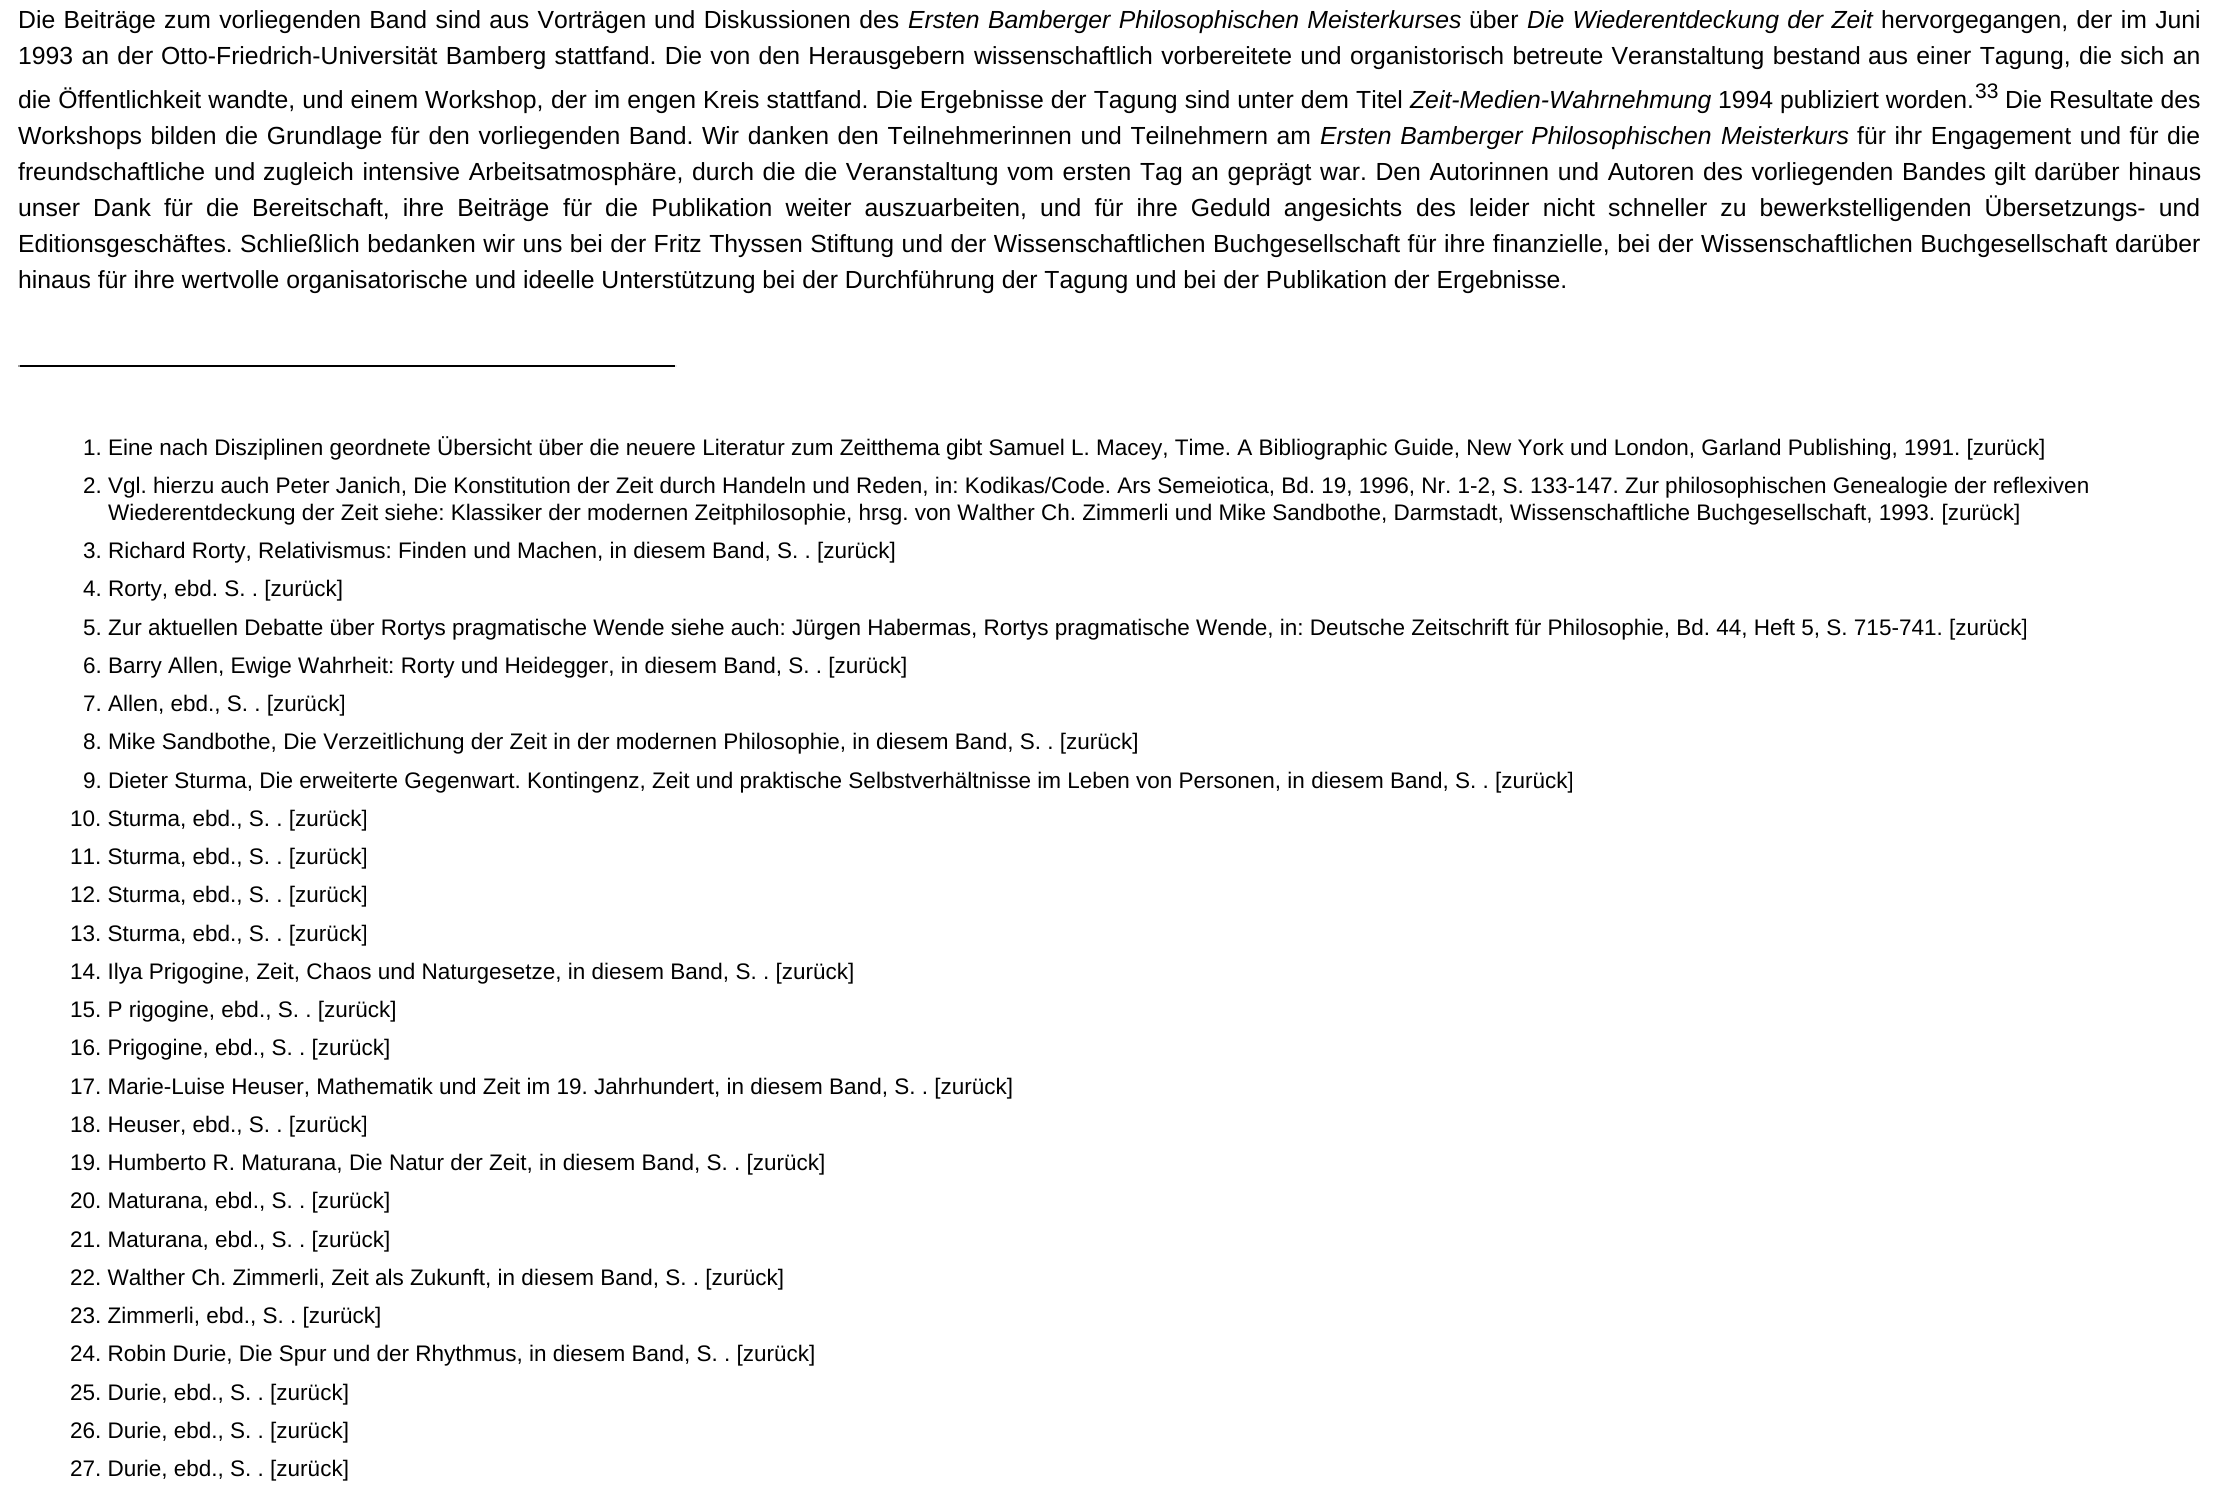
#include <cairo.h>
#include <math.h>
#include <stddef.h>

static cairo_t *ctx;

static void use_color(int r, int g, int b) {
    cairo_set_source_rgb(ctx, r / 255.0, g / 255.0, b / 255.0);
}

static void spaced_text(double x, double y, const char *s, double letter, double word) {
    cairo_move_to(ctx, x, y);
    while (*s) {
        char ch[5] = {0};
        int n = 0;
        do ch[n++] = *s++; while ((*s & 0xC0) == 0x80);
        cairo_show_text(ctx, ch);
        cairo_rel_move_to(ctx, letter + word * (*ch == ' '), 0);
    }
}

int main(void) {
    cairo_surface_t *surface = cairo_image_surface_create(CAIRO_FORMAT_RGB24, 2217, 1496);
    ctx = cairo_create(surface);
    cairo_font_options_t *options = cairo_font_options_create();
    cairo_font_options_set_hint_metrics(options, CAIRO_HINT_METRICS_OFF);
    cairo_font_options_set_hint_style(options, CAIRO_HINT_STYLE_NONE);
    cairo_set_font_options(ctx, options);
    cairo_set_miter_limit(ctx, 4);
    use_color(255, 255, 255);
    cairo_paint(ctx);
    cairo_select_font_face(ctx, "Liberation Sans", CAIRO_FONT_SLANT_NORMAL, CAIRO_FONT_WEIGHT_NORMAL);
    cairo_set_font_size(ctx, 24.75);
    use_color(0, 0, 0);
    spaced_text(18, 28, "Die Beiträge zum vorliegenden Band sind aus Vorträgen", 0, 1.5);
    spaced_text(654, 28, "und Diskussionen des", 0, 1.5);
    cairo_select_font_face(ctx, "Liberation Sans", CAIRO_FONT_SLANT_ITALIC, CAIRO_FONT_WEIGHT_NORMAL);
    spaced_text(908, 28, "Ersten Bamberger Philosophischen Meisterkurses", 0, 1.5);
    cairo_select_font_face(ctx, "Liberation Sans", CAIRO_FONT_SLANT_NORMAL, CAIRO_FONT_WEIGHT_NORMAL);
    cairo_move_to(ctx, 1469, 28);
    cairo_show_text(ctx, "über");
    cairo_select_font_face(ctx, "Liberation Sans", CAIRO_FONT_SLANT_ITALIC, CAIRO_FONT_WEIGHT_NORMAL);
    spaced_text(1527, 28, "Die Wiederentdeckung der Zeit", 0, 1.5);
    cairo_select_font_face(ctx, "Liberation Sans", CAIRO_FONT_SLANT_NORMAL, CAIRO_FONT_WEIGHT_NORMAL);
    spaced_text(1881, 28, "hervorgegangen, der im Juni", 0, 1.5);
    spaced_text(18, 64, "1993 an der", 0, 1.5);
    spaced_text(161, 64, "Otto-Friedrich-Universität Bamberg stattfand. Die von den Herausgebern", 0, 1.5);
    spaced_text(974, 64, "wissenschaftlich vorbereitete und organistorisch betreute Veranstaltung bestand", 0, 1.5);
    spaced_text(1868, 64, "aus einer Tagung, die sich an", 0, 1.5);
    spaced_text(18, 108, "die Öffentlichkeit wandte, und einem Workshop,", 0, 0.25);
    spaced_text(551, 108, "der im engen Kreis stattfand. Die Ergebnisse der Tagung sind unter dem Titel", 0, 0.25);
    cairo_select_font_face(ctx, "Liberation Sans", CAIRO_FONT_SLANT_ITALIC, CAIRO_FONT_WEIGHT_NORMAL);
    cairo_move_to(ctx, 1410, 108);
    cairo_show_text(ctx, "Zeit-Medien-Wahrnehmung");
    cairo_select_font_face(ctx, "Liberation Sans", CAIRO_FONT_SLANT_NORMAL, CAIRO_FONT_WEIGHT_NORMAL);
    cairo_move_to(ctx, 1718, 108);
    cairo_show_text(ctx, "1994 publiziert worden.");
    cairo_set_font_size(ctx, 21);
    cairo_move_to(ctx, 1975, 98);
    cairo_show_text(ctx, "33");
    cairo_set_font_size(ctx, 24.75);
    cairo_move_to(ctx, 2005, 108);
    cairo_show_text(ctx, "Die Resultate des");
    spaced_text(18, 144, "Workshops bilden die Grundlage für den vorliegenden Band.", 0, 1.75);
    spaced_text(702, 144, "Wir danken den Teilnehmerinnen und Teilnehmern am", 0, 1.75);
    cairo_select_font_face(ctx, "Liberation Sans", CAIRO_FONT_SLANT_ITALIC, CAIRO_FONT_WEIGHT_NORMAL);
    spaced_text(1320, 144, "Ersten Bamberger Philosophischen", 0, 1.75);
    cairo_move_to(ctx, 1721, 144);
    cairo_show_text(ctx, "Meisterkurs");
    cairo_select_font_face(ctx, "Liberation Sans", CAIRO_FONT_SLANT_NORMAL, CAIRO_FONT_WEIGHT_NORMAL);
    spaced_text(1857, 144, "für ihr Engagement und für die", 0, 1.75);
    spaced_text(18, 180, "freundschaftliche und", 0, 2);
    spaced_text(263, 180, "zugleich intensive Arbeitsatmosphäre, durch die die Veranstaltung vom ersten", 0, 1.75);
    spaced_text(1140, 180, "Tag an geprägt war. Den Autorinnen und Autoren des vorliegenden Bandes", 0, 1.75);
    spaced_text(1994, 180, "gilt darüber hinaus", 0, 1.75);
    spaced_text(18, 216, "unser Dank für die Bereitschaft, ihre Beiträge", 0, 6.25);
    spaced_text(563, 216, "für die Publikation weiter auszuarbeiten, und für ihre Geduld angesichts", 0, 6.25);
    spaced_text(1416, 216, "des leider nicht schneller zu bewerkstelligenden Übersetzungs- und", 0, 6.25);
    cairo_move_to(ctx, 18, 252);
    cairo_show_text(ctx, "Editionsgeschäftes.");
    spaced_text(240, 252, "Schließlich bedanken wir uns bei der Fritz Thyssen Stiftung und der Wissenschaftlichen", 0, 0.6);
    spaced_text(1213, 252, "Buchgesellschaft für ihre finanzielle, bei der Wissenschaftlichen Buchgesellschaft", 0, 0.6);
    cairo_move_to(ctx, 2115, 252);
    cairo_show_text(ctx, "darüber");
    cairo_move_to(ctx, 18, 288);
    cairo_show_text(ctx, "hinaus für ihre wertvolle organisatorische und ideelle Unterstützung bei der Durchführung der Tagung und bei der Publikation der Ergebnisse.");
    cairo_rectangle(ctx, 18, 365, 659, 2);
    cairo_fill(ctx);
    use_color(238, 238, 238);
    cairo_rectangle(ctx, 675, 365, 2, 2);
    cairo_fill(ctx);
    use_color(159, 159, 159);
    cairo_rectangle(ctx, 18, 365, 2, 2);
    cairo_fill(ctx);
    cairo_set_font_size(ctx, 22.5);
    use_color(0, 0, 0);
    cairo_move_to(ctx, 83, 455);
    cairo_show_text(ctx, "1. Eine nach Disziplinen geordnete Übersicht über die neuere Literatur zum Zeitthema gibt Samuel L. Macey, Time. A Bibliographic Guide, New York und London, Garland Publishing, 1991. [zurück]");
    cairo_move_to(ctx, 83, 493);
    cairo_show_text(ctx, "2. Vgl. hierzu auch Peter Janich, Die Konstitution der Zeit durch Handeln und Reden, in: Kodikas/Code. Ars Semeiotica, Bd. 19, 1996, Nr. 1-2, S. 133-147. Zur philosophischen Genealogie der reflexiven");
    cairo_move_to(ctx, 108, 520);
    cairo_show_text(ctx, "Wiederentdeckung der Zeit siehe: Klassiker der modernen Zeitphilosophie, hrsg. von Walther Ch. Zimmerli und Mike Sandbothe, Darmstadt, Wissenschaftliche Buchgesellschaft, 1993. [zurück]");
    cairo_move_to(ctx, 83, 558);
    cairo_show_text(ctx, "3. Richard Rorty, Relativismus: Finden und Machen, in diesem Band, S. . [zurück]");
    cairo_move_to(ctx, 83, 596);
    cairo_show_text(ctx, "4. Rorty, ebd. S. . [zurück]");
    cairo_move_to(ctx, 83, 635);
    cairo_show_text(ctx, "5. Zur aktuellen Debatte über Rortys pragmatische Wende siehe auch: Jürgen Habermas, Rortys pragmatische Wende, in: Deutsche Zeitschrift für Philosophie, Bd. 44, Heft 5, S. 715-741. [zurück]");
    cairo_move_to(ctx, 83, 673);
    cairo_show_text(ctx, "6. Barry Allen, Ewige Wahrheit: Rorty und Heidegger, in diesem Band, S. . [zurück]");
    cairo_move_to(ctx, 83, 711);
    cairo_show_text(ctx, "7. Allen, ebd., S. . [zurück]");
    cairo_move_to(ctx, 83, 749);
    cairo_show_text(ctx, "8. Mike Sandbothe, Die Verzeitlichung der Zeit in der modernen Philosophie, in diesem Band, S. . [zurück]");
    cairo_move_to(ctx, 83, 788);
    cairo_show_text(ctx, "9. Dieter Sturma, Die erweiterte Gegenwart. Kontingenz, Zeit und praktische Selbstverhältnisse im Leben von Personen, in diesem Band, S. . [zurück]");
    cairo_move_to(ctx, 70, 826);
    cairo_show_text(ctx, "10. Sturma, ebd., S. . [zurück]");
    cairo_move_to(ctx, 70, 864);
    cairo_show_text(ctx, "11. Sturma, ebd., S. . [zurück]");
    cairo_move_to(ctx, 70, 902);
    cairo_show_text(ctx, "12. Sturma, ebd., S. . [zurück]");
    cairo_move_to(ctx, 70, 941);
    cairo_show_text(ctx, "13. Sturma, ebd., S. . [zurück]");
    cairo_move_to(ctx, 70, 979);
    cairo_show_text(ctx, "14. Ilya Prigogine, Zeit, Chaos und Naturgesetze, in diesem Band, S. . [zurück]");
    cairo_move_to(ctx, 70, 1017);
    cairo_show_text(ctx, "15. P rigogine, ebd., S. . [zurück]");
    cairo_move_to(ctx, 70, 1055);
    cairo_show_text(ctx, "16. Prigogine, ebd., S. . [zurück]");
    cairo_move_to(ctx, 70, 1094);
    cairo_show_text(ctx, "17. Marie-Luise Heuser, Mathematik und Zeit im 19. Jahrhundert, in diesem Band, S. . [zurück]");
    cairo_move_to(ctx, 70, 1132);
    cairo_show_text(ctx, "18. Heuser, ebd., S. . [zurück]");
    cairo_move_to(ctx, 70, 1170);
    cairo_show_text(ctx, "19. Humberto R. Maturana, Die Natur der Zeit, in diesem Band, S. . [zurück]");
    cairo_move_to(ctx, 70, 1208);
    cairo_show_text(ctx, "20. Maturana, ebd., S. . [zurück]");
    cairo_move_to(ctx, 70, 1247);
    cairo_show_text(ctx, "21. Maturana, ebd., S. . [zurück]");
    cairo_move_to(ctx, 70, 1285);
    cairo_show_text(ctx, "22. Walther Ch. Zimmerli, Zeit als Zukunft, in diesem Band, S. . [zurück]");
    cairo_move_to(ctx, 70, 1323);
    cairo_show_text(ctx, "23. Zimmerli, ebd., S. . [zurück]");
    cairo_move_to(ctx, 70, 1361);
    cairo_show_text(ctx, "24. Robin Durie, Die Spur und der Rhythmus, in diesem Band, S. . [zurück]");
    cairo_move_to(ctx, 70, 1400);
    cairo_show_text(ctx, "25. Durie, ebd., S. . [zurück]");
    cairo_move_to(ctx, 70, 1438);
    cairo_show_text(ctx, "26. Durie, ebd., S. . [zurück]");
    cairo_move_to(ctx, 70, 1476);
    cairo_show_text(ctx, "27. Durie, ebd., S. . [zurück]");
    cairo_surface_write_to_png(surface, "result.png");
    cairo_font_options_destroy(options);
    cairo_destroy(ctx);
    cairo_surface_destroy(surface);
    return 0;
}
